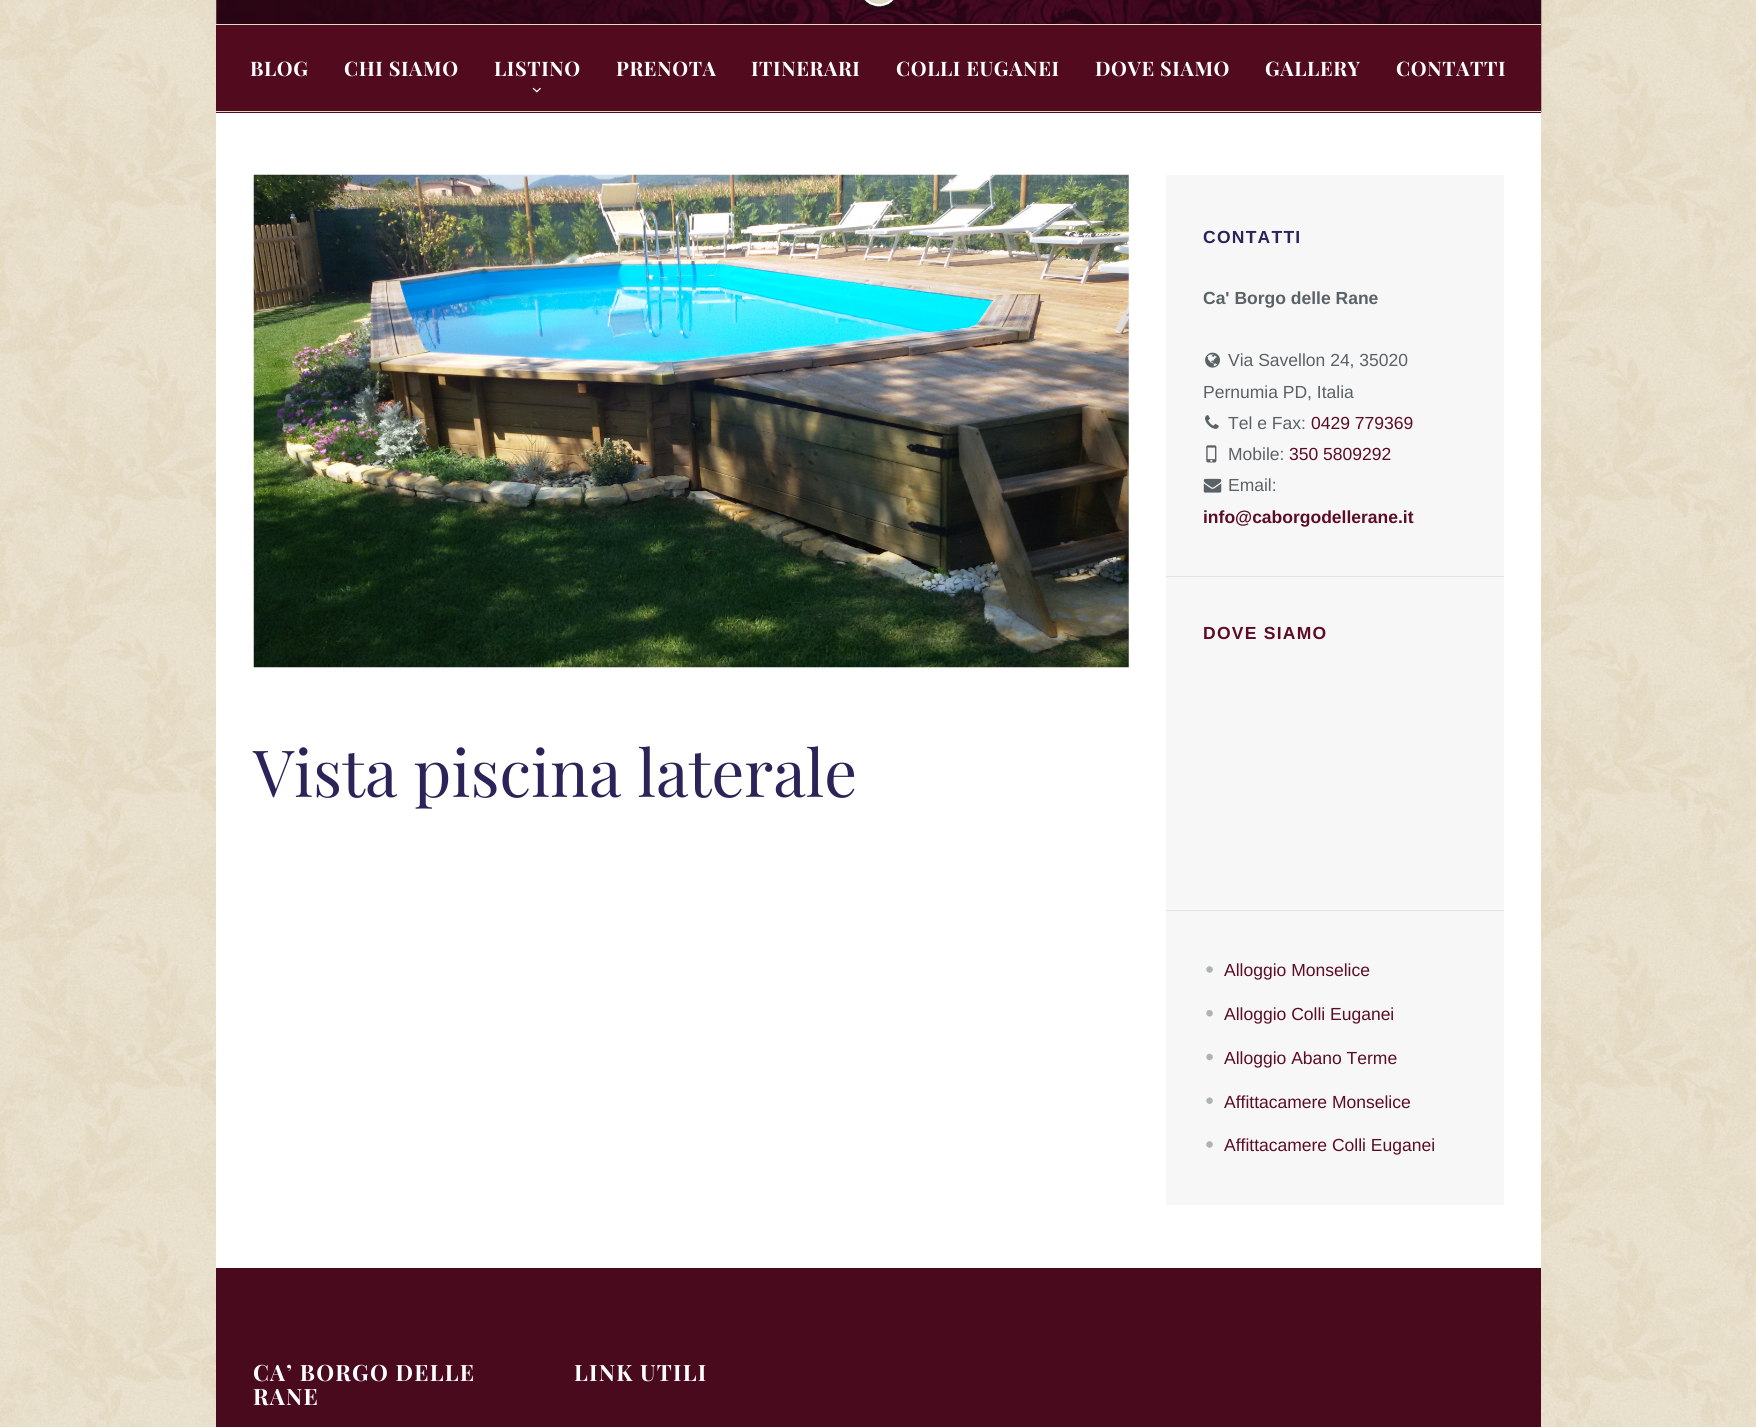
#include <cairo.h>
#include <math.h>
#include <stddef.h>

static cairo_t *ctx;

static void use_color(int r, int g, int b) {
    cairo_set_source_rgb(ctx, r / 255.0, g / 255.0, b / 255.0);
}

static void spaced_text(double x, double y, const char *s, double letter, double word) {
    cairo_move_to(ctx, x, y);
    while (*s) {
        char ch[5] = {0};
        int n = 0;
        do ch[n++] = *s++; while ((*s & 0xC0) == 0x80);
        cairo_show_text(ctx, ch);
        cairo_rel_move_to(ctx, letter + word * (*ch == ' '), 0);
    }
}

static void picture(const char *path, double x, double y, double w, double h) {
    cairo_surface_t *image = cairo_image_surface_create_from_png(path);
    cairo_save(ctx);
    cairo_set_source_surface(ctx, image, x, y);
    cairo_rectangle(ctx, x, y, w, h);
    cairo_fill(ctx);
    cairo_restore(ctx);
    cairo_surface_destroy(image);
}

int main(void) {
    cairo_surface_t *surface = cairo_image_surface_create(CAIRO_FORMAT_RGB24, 1756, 1427);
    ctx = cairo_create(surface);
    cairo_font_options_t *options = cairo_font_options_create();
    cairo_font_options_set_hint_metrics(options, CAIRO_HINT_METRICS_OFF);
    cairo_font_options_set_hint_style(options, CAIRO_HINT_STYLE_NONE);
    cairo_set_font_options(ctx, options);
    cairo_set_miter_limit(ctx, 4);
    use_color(255, 255, 255);
    cairo_paint(ctx);
    picture("img1.png", 0, 0, 1756, 1427);
    picture("img2.png", 216, 0, 1326, 113);
    picture("img3.png", 860, 0, 35, 9);
    use_color(81, 10, 30);
    cairo_rectangle(ctx, 216, 25, 1325, 88);
    cairo_fill(ctx);
    use_color(227, 220, 197);
    cairo_rectangle(ctx, 216, 24, 1325, 1);
    cairo_fill(ctx);
    cairo_rectangle(ctx, 216, 111, 1325, 1);
    cairo_fill(ctx);
    cairo_select_font_face(ctx, "Playfair Display", CAIRO_FONT_SLANT_NORMAL, CAIRO_FONT_WEIGHT_BOLD);
    cairo_set_font_size(ctx, 20);
    use_color(255, 255, 255);
    spaced_text(250, 76, "BLOG", 0.6, 0);
    spaced_text(344, 76, "CHI SIAMO", 0.6, 0);
    spaced_text(494, 76, "LISTINO", 0.6, 0);
    picture("img4.png", 532, 87, 9, 6);
    spaced_text(616, 76, "PRENOTA", 0.6, 0);
    spaced_text(751, 76, "ITINERARI", 0.6, 0);
    spaced_text(896, 76, "COLLI EUGANEI", 0.6, 0);
    spaced_text(1095, 76, "DOVE SIAMO", 0.6, 0);
    spaced_text(1265, 76, "GALLERY", 0.6, 0);
    spaced_text(1396, 76, "CONTATTI", 0.6, 0);
    cairo_rectangle(ctx, 216, 113, 1325, 1155);
    cairo_fill(ctx);
    picture("img5.png", 253, 174, 876, 494);
    cairo_select_font_face(ctx, "Playfair Display", CAIRO_FONT_SLANT_NORMAL, CAIRO_FONT_WEIGHT_NORMAL);
    cairo_set_font_size(ctx, 65);
    use_color(43, 36, 89);
    cairo_move_to(ctx, 253, 797);
    cairo_show_text(ctx, "Vista piscina laterale");
    use_color(247, 247, 247);
    cairo_rectangle(ctx, 1166, 175, 338, 1030);
    cairo_fill(ctx);
    cairo_select_font_face(ctx, "Arimo", CAIRO_FONT_SLANT_NORMAL, CAIRO_FONT_WEIGHT_BOLD);
    cairo_set_font_size(ctx, 17.5);
    use_color(43, 36, 89);
    spaced_text(1203, 243, "CONTATTI", 1.25, 0);
    use_color(90, 98, 102);
    cairo_move_to(ctx, 1203, 304);
    cairo_show_text(ctx, "Ca' Borgo delle Rane");
    picture("img6.png", 1205, 352, 15, 16);
    cairo_select_font_face(ctx, "Arimo", CAIRO_FONT_SLANT_NORMAL, CAIRO_FONT_WEIGHT_NORMAL);
    cairo_move_to(ctx, 1228, 366);
    cairo_show_text(ctx, "Via Savellon 24, 35020");
    cairo_move_to(ctx, 1203, 398);
    cairo_show_text(ctx, "Pernumia PD, Italia");
    picture("img7.png", 1205, 415, 14, 14);
    cairo_move_to(ctx, 1228, 429);
    cairo_show_text(ctx, "Tel e Fax:");
    use_color(92, 13, 37);
    cairo_move_to(ctx, 1311, 429);
    cairo_show_text(ctx, "0429 779369");
    picture("img8.png", 1206, 445, 11, 18);
    use_color(90, 98, 102);
    cairo_move_to(ctx, 1228, 460);
    cairo_show_text(ctx, "Mobile:");
    use_color(92, 13, 37);
    cairo_move_to(ctx, 1289, 460);
    cairo_show_text(ctx, "350 5809292");
    picture("img9.png", 1203, 478, 19, 15);
    use_color(90, 98, 102);
    cairo_move_to(ctx, 1228, 491);
    cairo_show_text(ctx, "Email:");
    cairo_select_font_face(ctx, "Arimo", CAIRO_FONT_SLANT_NORMAL, CAIRO_FONT_WEIGHT_BOLD);
    use_color(92, 13, 37);
    cairo_move_to(ctx, 1203, 523);
    cairo_show_text(ctx, "info@caborgodellerane.it");
    use_color(224, 226, 228);
    cairo_rectangle(ctx, 1166, 576, 338, 1);
    cairo_fill(ctx);
    use_color(92, 13, 37);
    spaced_text(1203, 639, "DOVE SIAMO", 1.25, 0);
    use_color(224, 226, 228);
    cairo_rectangle(ctx, 1166, 910, 338, 1);
    cairo_fill(ctx);
    picture("img10.png", 1206, 966, 7, 7);
    cairo_select_font_face(ctx, "Arimo", CAIRO_FONT_SLANT_NORMAL, CAIRO_FONT_WEIGHT_NORMAL);
    use_color(92, 13, 37);
    cairo_move_to(ctx, 1224, 976);
    cairo_show_text(ctx, "Alloggio Monselice");
    picture("img11.png", 1206, 1010, 7, 7);
    cairo_move_to(ctx, 1224, 1020);
    cairo_show_text(ctx, "Alloggio Colli Euganei");
    picture("img12.png", 1206, 1053, 7, 8);
    cairo_move_to(ctx, 1224, 1064);
    cairo_show_text(ctx, "Alloggio Abano Terme");
    picture("img13.png", 1206, 1097, 7, 7);
    cairo_move_to(ctx, 1224, 1108);
    cairo_show_text(ctx, "Affittacamere Monselice");
    picture("img10.png", 1206, 1141, 7, 7);
    cairo_move_to(ctx, 1224, 1151);
    cairo_show_text(ctx, "Affittacamere Colli Euganei");
    use_color(74, 10, 30);
    cairo_rectangle(ctx, 216, 1268, 1325, 159);
    cairo_fill(ctx);
    cairo_select_font_face(ctx, "Playfair Display", CAIRO_FONT_SLANT_NORMAL, CAIRO_FONT_WEIGHT_BOLD);
    cairo_set_font_size(ctx, 22.5);
    use_color(255, 255, 255);
    spaced_text(253, 1381, "CA’ BORGO DELLE", 1.25, 0);
    spaced_text(253, 1405, "RANE", 1.25, 0);
    spaced_text(574, 1381, "LINK UTILI", 1.25, 0);
    cairo_surface_write_to_png(surface, "result.png");
    cairo_font_options_destroy(options);
    cairo_destroy(ctx);
    cairo_surface_destroy(surface);
    return 0;
}
